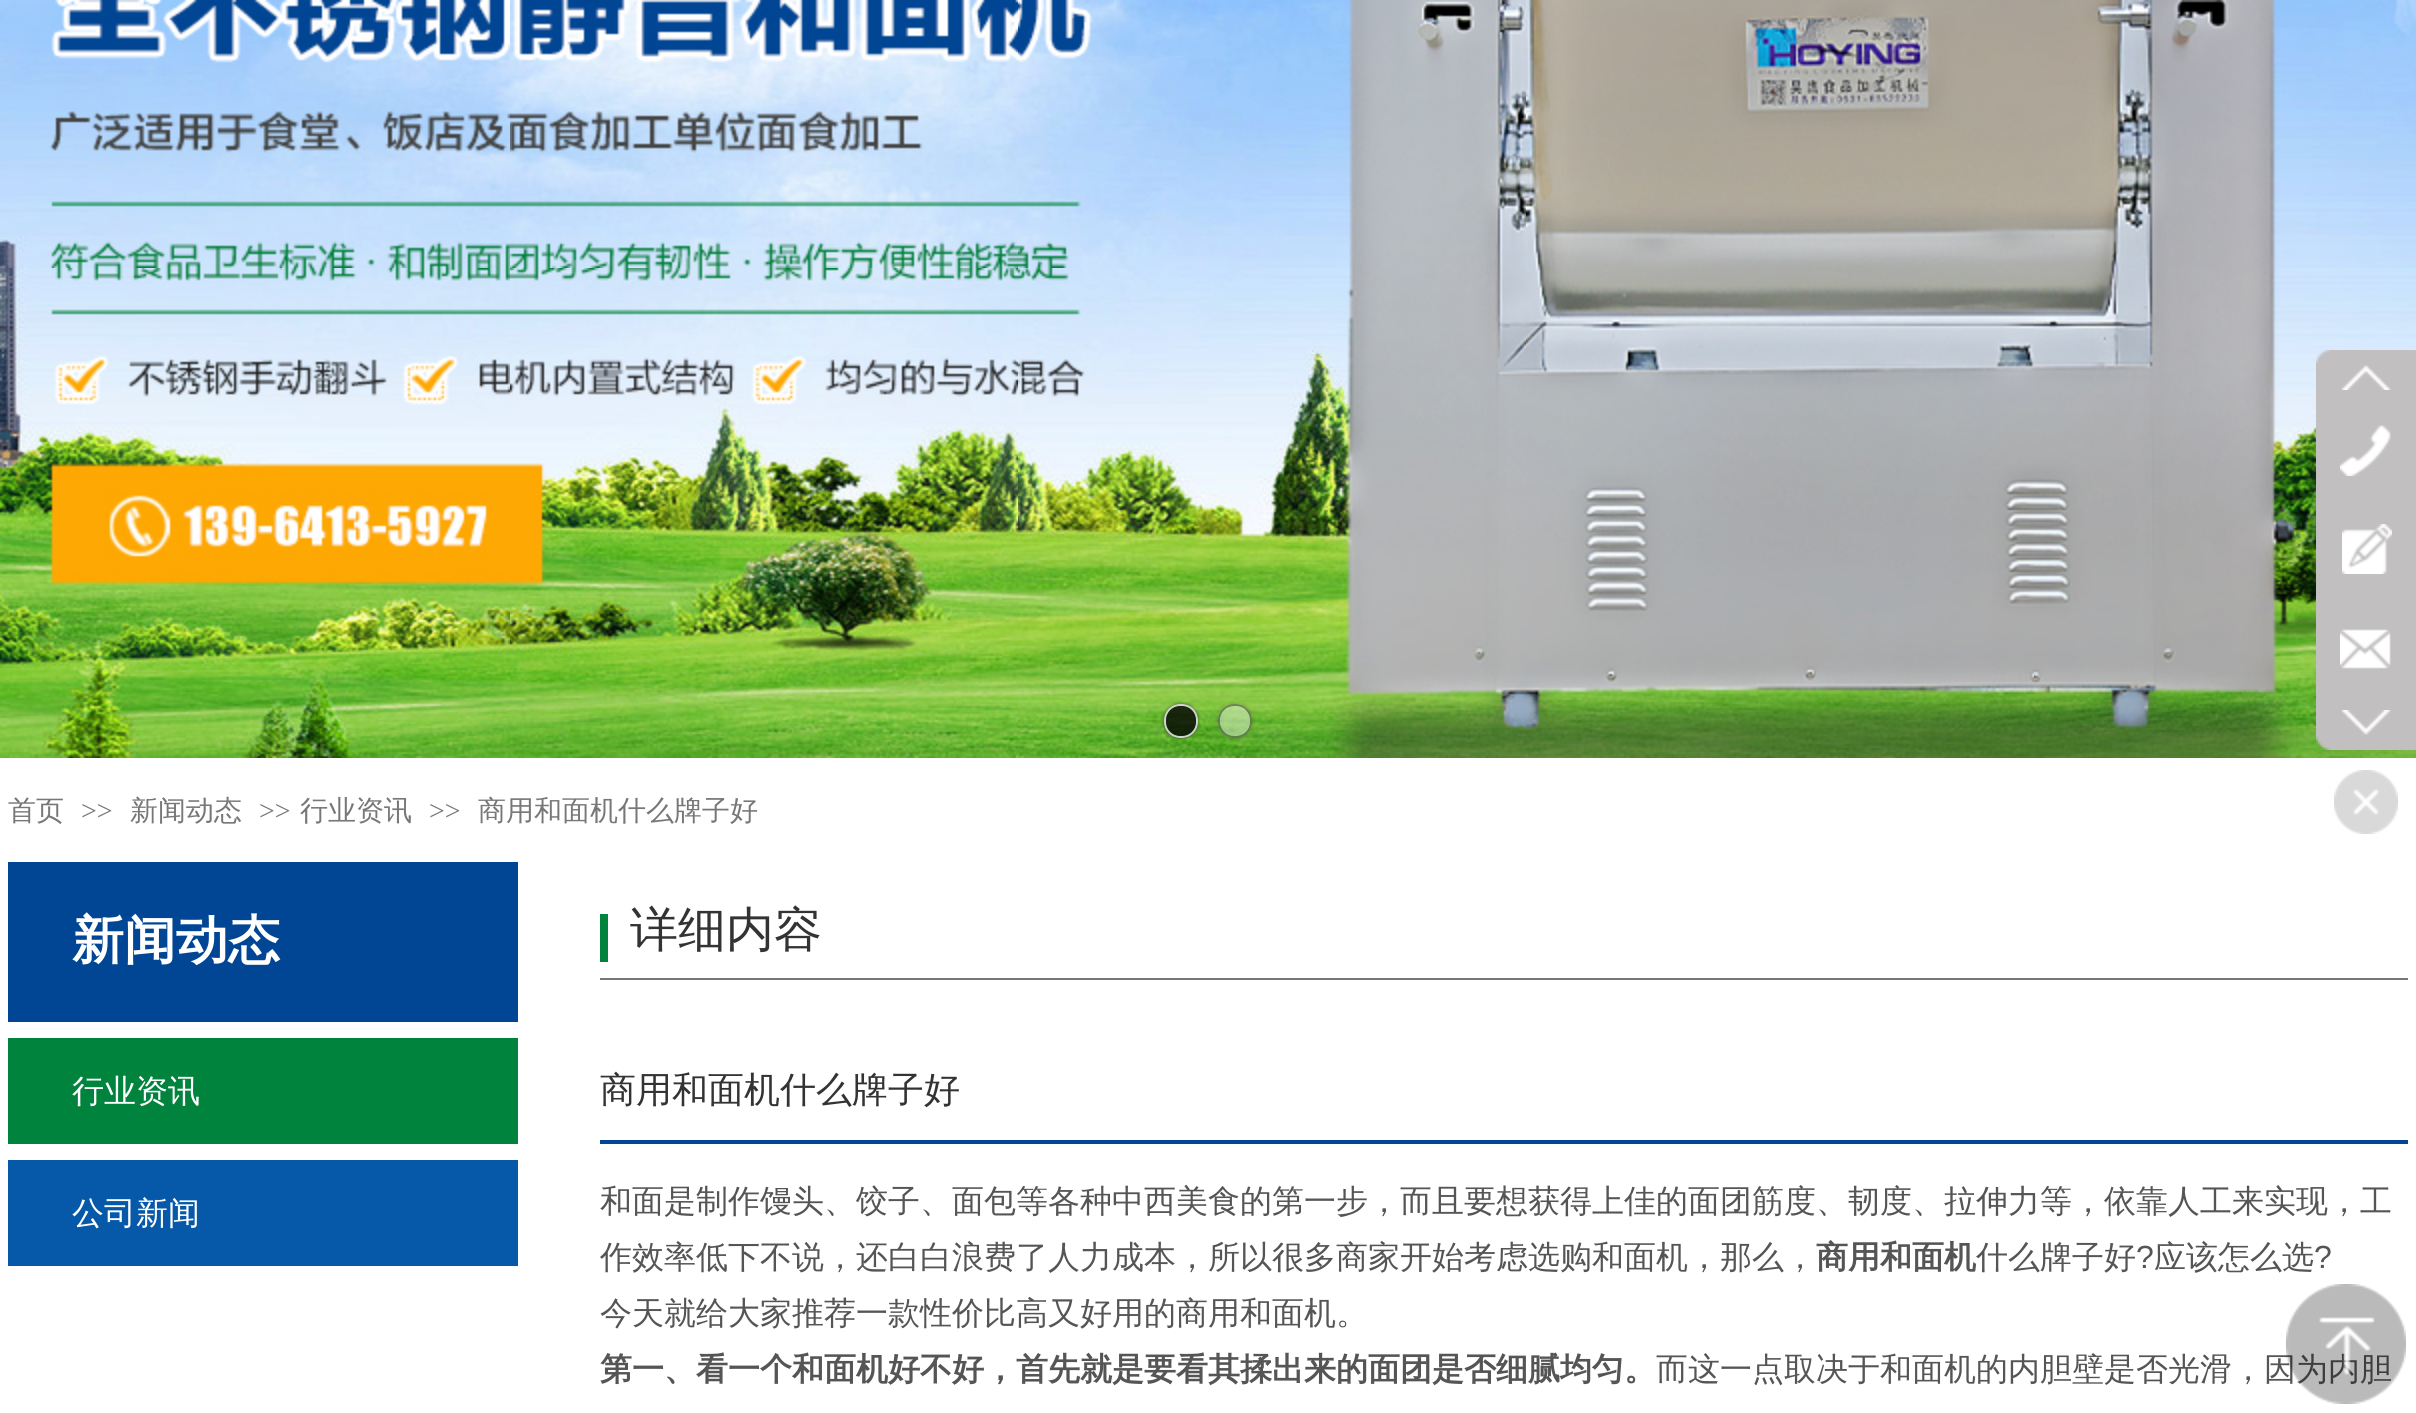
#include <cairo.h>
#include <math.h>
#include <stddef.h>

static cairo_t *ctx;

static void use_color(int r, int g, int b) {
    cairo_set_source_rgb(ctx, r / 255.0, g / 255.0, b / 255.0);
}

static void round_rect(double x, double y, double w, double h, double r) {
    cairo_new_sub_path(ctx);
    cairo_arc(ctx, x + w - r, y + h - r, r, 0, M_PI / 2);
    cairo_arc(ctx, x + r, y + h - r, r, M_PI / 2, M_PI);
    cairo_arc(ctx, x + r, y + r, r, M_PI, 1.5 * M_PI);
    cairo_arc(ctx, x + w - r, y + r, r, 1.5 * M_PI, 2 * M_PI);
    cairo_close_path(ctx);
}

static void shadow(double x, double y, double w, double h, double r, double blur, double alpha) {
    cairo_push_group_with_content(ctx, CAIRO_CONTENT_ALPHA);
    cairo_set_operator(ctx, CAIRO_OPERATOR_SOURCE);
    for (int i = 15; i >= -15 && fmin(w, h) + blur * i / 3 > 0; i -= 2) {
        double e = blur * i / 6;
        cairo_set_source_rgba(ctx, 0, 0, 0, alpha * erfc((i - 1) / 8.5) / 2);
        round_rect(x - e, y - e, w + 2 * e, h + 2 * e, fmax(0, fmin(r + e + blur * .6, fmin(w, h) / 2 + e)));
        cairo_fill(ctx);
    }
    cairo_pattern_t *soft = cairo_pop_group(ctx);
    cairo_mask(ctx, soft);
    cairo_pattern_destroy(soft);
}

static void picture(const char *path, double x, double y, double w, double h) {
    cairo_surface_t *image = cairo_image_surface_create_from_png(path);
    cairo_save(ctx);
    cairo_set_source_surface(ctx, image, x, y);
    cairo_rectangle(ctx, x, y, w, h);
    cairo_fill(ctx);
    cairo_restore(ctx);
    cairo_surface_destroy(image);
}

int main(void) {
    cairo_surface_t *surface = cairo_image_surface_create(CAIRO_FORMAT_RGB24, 2416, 1413);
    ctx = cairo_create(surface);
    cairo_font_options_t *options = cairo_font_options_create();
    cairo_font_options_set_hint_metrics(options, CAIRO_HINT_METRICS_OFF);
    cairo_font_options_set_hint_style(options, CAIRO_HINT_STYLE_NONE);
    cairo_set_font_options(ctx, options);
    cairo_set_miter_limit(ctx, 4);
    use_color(255, 255, 255);
    cairo_paint(ctx);
    picture("img1.png", 0, 0, 2416, 758);
    cairo_save(ctx);
    cairo_set_fill_rule(ctx, CAIRO_FILL_RULE_EVEN_ODD);
    cairo_new_path(ctx);
    cairo_move_to(ctx, 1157, 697);
    cairo_line_to(ctx, 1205, 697);
    cairo_line_to(ctx, 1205, 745);
    cairo_line_to(ctx, 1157, 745);
    cairo_close_path(ctx);
    cairo_move_to(ctx, 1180, 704);
    cairo_line_to(ctx, 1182, 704);
    cairo_curve_to(ctx, 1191, 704, 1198, 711, 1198, 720);
    cairo_line_to(ctx, 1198, 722);
    cairo_curve_to(ctx, 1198, 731, 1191, 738, 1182, 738);
    cairo_line_to(ctx, 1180, 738);
    cairo_curve_to(ctx, 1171, 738, 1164, 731, 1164, 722);
    cairo_line_to(ctx, 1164, 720);
    cairo_curve_to(ctx, 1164, 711, 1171, 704, 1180, 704);
    cairo_close_path(ctx);
    cairo_clip(ctx);
    use_color(0, 0, 0);
    shadow(1164, 704, 34, 34, 16, 2, 0.48);
    cairo_restore(ctx);
    cairo_set_source_rgba(ctx, 0, 0, 0, 0.8);
    round_rect(1164, 704, 34, 34, 16);
    cairo_fill(ctx);
    round_rect(1165, 705, 32, 32, 15);
    cairo_set_source_rgba(ctx, 1, 1, 1, 0.8);
    cairo_stroke(ctx);
    cairo_save(ctx);
    cairo_set_fill_rule(ctx, CAIRO_FILL_RULE_EVEN_ODD);
    cairo_new_path(ctx);
    cairo_move_to(ctx, 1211, 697);
    cairo_line_to(ctx, 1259, 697);
    cairo_line_to(ctx, 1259, 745);
    cairo_line_to(ctx, 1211, 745);
    cairo_close_path(ctx);
    cairo_move_to(ctx, 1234, 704);
    cairo_line_to(ctx, 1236, 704);
    cairo_curve_to(ctx, 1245, 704, 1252, 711, 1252, 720);
    cairo_line_to(ctx, 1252, 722);
    cairo_curve_to(ctx, 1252, 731, 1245, 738, 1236, 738);
    cairo_line_to(ctx, 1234, 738);
    cairo_curve_to(ctx, 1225, 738, 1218, 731, 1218, 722);
    cairo_line_to(ctx, 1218, 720);
    cairo_curve_to(ctx, 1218, 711, 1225, 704, 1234, 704);
    cairo_close_path(ctx);
    cairo_clip(ctx);
    use_color(0, 0, 0);
    shadow(1218, 704, 34, 34, 16, 2, 0.24);
    cairo_restore(ctx);
    cairo_set_source_rgba(ctx, 1, 1, 1, 0.4);
    round_rect(1218, 704, 34, 34, 16);
    cairo_fill(ctx);
    round_rect(1219, 705, 32, 32, 15);
    cairo_set_source_rgba(ctx, 0, 0, 0, 0.4);
    cairo_stroke(ctx);
    picture("img2.png", 2316, 350, 14, 14);
    use_color(193, 191, 192);
    cairo_rectangle(ctx, 2330, 350, 86, 14);
    cairo_fill(ctx);
    cairo_rectangle(ctx, 2316, 364, 100, 372);
    cairo_fill(ctx);
    picture("img3.png", 2342, 365, 49, 25);
    picture("img4.png", 2340, 425, 51, 51);
    picture("img5.png", 2342, 524, 50, 50);
    picture("img6.png", 2340, 629, 51, 40);
    picture("img7.png", 2342, 710, 49, 25);
    picture("img8.png", 2316, 736, 14, 14);
    cairo_rectangle(ctx, 2330, 736, 86, 14);
    cairo_fill(ctx);
    picture("img9.png", 2334, 770, 64, 64);
    cairo_select_font_face(ctx, "WenQuanYi Zen Hei Medium", CAIRO_FONT_SLANT_NORMAL, CAIRO_FONT_WEIGHT_NORMAL);
    cairo_set_font_size(ctx, 28);
    use_color(119, 119, 119);
    cairo_move_to(ctx, 8, 820);
    cairo_show_text(ctx, "首页");
    cairo_select_font_face(ctx, "Liberation Serif", CAIRO_FONT_SLANT_NORMAL, CAIRO_FONT_WEIGHT_NORMAL);
    cairo_move_to(ctx, 81, 820);
    cairo_show_text(ctx, ">>");
    cairo_select_font_face(ctx, "WenQuanYi Zen Hei Medium", CAIRO_FONT_SLANT_NORMAL, CAIRO_FONT_WEIGHT_NORMAL);
    cairo_move_to(ctx, 130, 820);
    cairo_show_text(ctx, "新闻动态");
    cairo_select_font_face(ctx, "Liberation Serif", CAIRO_FONT_SLANT_NORMAL, CAIRO_FONT_WEIGHT_NORMAL);
    cairo_move_to(ctx, 259, 820);
    cairo_show_text(ctx, ">>");
    cairo_select_font_face(ctx, "WenQuanYi Zen Hei Medium", CAIRO_FONT_SLANT_NORMAL, CAIRO_FONT_WEIGHT_NORMAL);
    cairo_move_to(ctx, 300, 820);
    cairo_show_text(ctx, "行业资讯");
    cairo_select_font_face(ctx, "Liberation Serif", CAIRO_FONT_SLANT_NORMAL, CAIRO_FONT_WEIGHT_NORMAL);
    cairo_move_to(ctx, 429, 820);
    cairo_show_text(ctx, ">>");
    cairo_select_font_face(ctx, "WenQuanYi Zen Hei Medium", CAIRO_FONT_SLANT_NORMAL, CAIRO_FONT_WEIGHT_NORMAL);
    cairo_move_to(ctx, 478, 820);
    cairo_show_text(ctx, "商用和面机什么牌子好");
    use_color(0, 70, 148);
    cairo_rectangle(ctx, 8, 862, 510, 160);
    cairo_fill(ctx);
    cairo_select_font_face(ctx, "WenQuanYi Zen Hei", CAIRO_FONT_SLANT_NORMAL, CAIRO_FONT_WEIGHT_BOLD);
    cairo_set_font_size(ctx, 52);
    use_color(255, 255, 255);
    cairo_move_to(ctx, 72, 958);
    cairo_show_text(ctx, "新闻动态");
    use_color(0, 131, 61);
    cairo_rectangle(ctx, 8, 1038, 510, 106);
    cairo_fill(ctx);
    cairo_select_font_face(ctx, "WenQuanYi Zen Hei Medium", CAIRO_FONT_SLANT_NORMAL, CAIRO_FONT_WEIGHT_NORMAL);
    cairo_set_font_size(ctx, 32);
    use_color(255, 255, 255);
    cairo_move_to(ctx, 72, 1102);
    cairo_show_text(ctx, "行业资讯");
    use_color(6, 89, 169);
    cairo_rectangle(ctx, 8, 1160, 510, 106);
    cairo_fill(ctx);
    use_color(255, 255, 255);
    cairo_move_to(ctx, 72, 1224);
    cairo_show_text(ctx, "公司新闻");
    use_color(0, 131, 61);
    cairo_rectangle(ctx, 600, 914, 8, 48);
    cairo_fill(ctx);
    use_color(119, 119, 119);
    cairo_rectangle(ctx, 600, 978, 1808, 2);
    cairo_fill(ctx);
    cairo_set_font_size(ctx, 48);
    use_color(51, 51, 51);
    cairo_move_to(ctx, 630, 946);
    cairo_show_text(ctx, "详细内容");
    use_color(0, 70, 148);
    cairo_rectangle(ctx, 600, 1140, 1808, 4);
    cairo_fill(ctx);
    cairo_set_font_size(ctx, 36);
    use_color(51, 51, 51);
    cairo_move_to(ctx, 600, 1102);
    cairo_show_text(ctx, "商用和面机什么牌子好");
    cairo_set_font_size(ctx, 32);
    use_color(85, 85, 85);
    cairo_move_to(ctx, 600, 1212);
    cairo_show_text(ctx, "和面是制作馒头、饺子、面包等各种中西美食的第一步，而且要想获得上佳的面团筋度、韧度、拉伸力等，依靠人工来实现，工");
    cairo_move_to(ctx, 600, 1268);
    cairo_show_text(ctx, "作效率低下不说，还白白浪费了人力成本，所以很多商家开始考虑选购和面机，那么，");
    cairo_select_font_face(ctx, "WenQuanYi Zen Hei", CAIRO_FONT_SLANT_NORMAL, CAIRO_FONT_WEIGHT_BOLD);
    cairo_move_to(ctx, 1816, 1268);
    cairo_show_text(ctx, "商用和面机");
    cairo_select_font_face(ctx, "WenQuanYi Zen Hei Medium", CAIRO_FONT_SLANT_NORMAL, CAIRO_FONT_WEIGHT_NORMAL);
    cairo_move_to(ctx, 1976, 1268);
    cairo_show_text(ctx, "什么牌子好");
    cairo_select_font_face(ctx, "Liberation Sans", CAIRO_FONT_SLANT_NORMAL, CAIRO_FONT_WEIGHT_NORMAL);
    cairo_move_to(ctx, 2136, 1268);
    cairo_show_text(ctx, "?");
    cairo_select_font_face(ctx, "WenQuanYi Zen Hei Medium", CAIRO_FONT_SLANT_NORMAL, CAIRO_FONT_WEIGHT_NORMAL);
    cairo_move_to(ctx, 2154, 1268);
    cairo_show_text(ctx, "应该怎么选");
    cairo_select_font_face(ctx, "Liberation Sans", CAIRO_FONT_SLANT_NORMAL, CAIRO_FONT_WEIGHT_NORMAL);
    cairo_move_to(ctx, 2314, 1268);
    cairo_show_text(ctx, "?");
    cairo_select_font_face(ctx, "WenQuanYi Zen Hei Medium", CAIRO_FONT_SLANT_NORMAL, CAIRO_FONT_WEIGHT_NORMAL);
    cairo_move_to(ctx, 600, 1324);
    cairo_show_text(ctx, "今天就给大家推荐一款性价比高又好用的商用和面机。");
    cairo_select_font_face(ctx, "WenQuanYi Zen Hei", CAIRO_FONT_SLANT_NORMAL, CAIRO_FONT_WEIGHT_BOLD);
    cairo_move_to(ctx, 600, 1380);
    cairo_show_text(ctx, "第一、看一个和面机好不好，首先就是要看其揉出来的面团是否细腻均匀。");
    cairo_select_font_face(ctx, "WenQuanYi Zen Hei Medium", CAIRO_FONT_SLANT_NORMAL, CAIRO_FONT_WEIGHT_NORMAL);
    cairo_move_to(ctx, 1656, 1380);
    cairo_show_text(ctx, "而这一点取决于和面机的内胆壁是否光滑，因为内胆");
    picture("img10.png", 2286, 1284, 120, 120);
    cairo_surface_write_to_png(surface, "result.png");
    cairo_font_options_destroy(options);
    cairo_destroy(ctx);
    cairo_surface_destroy(surface);
    return 0;
}
